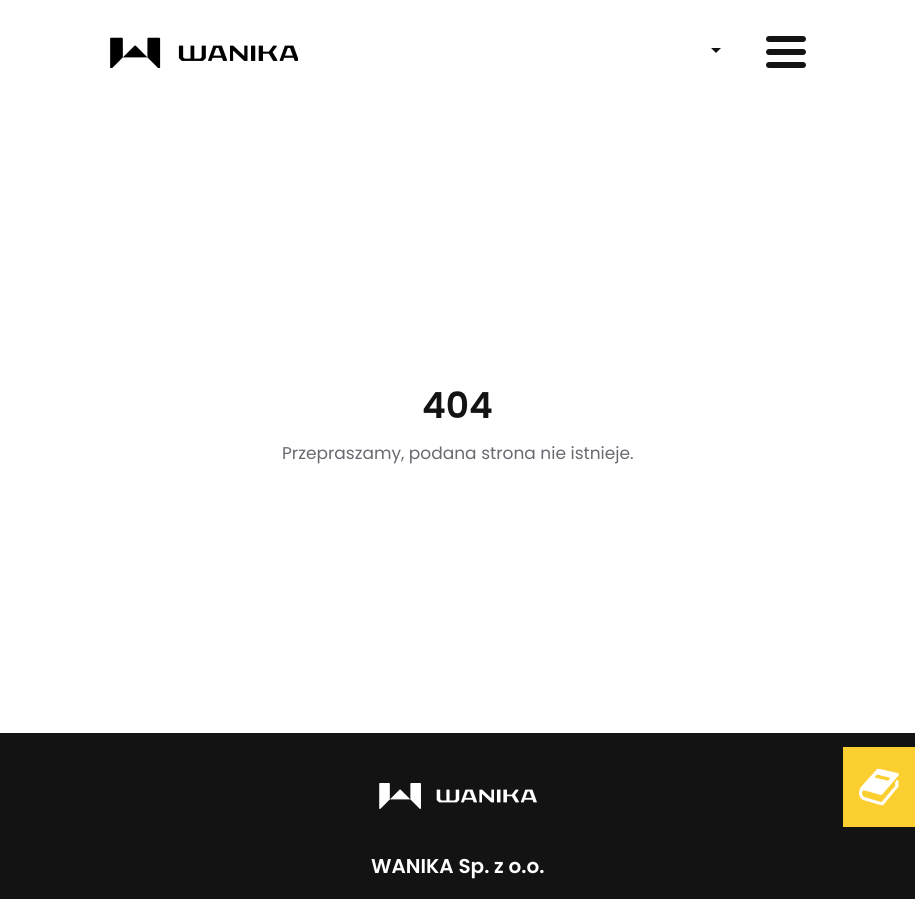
#include <cairo.h>
#include <math.h>
#include <stddef.h>

static cairo_t *ctx;

static void use_color(int r, int g, int b) {
    cairo_set_source_rgb(ctx, r / 255.0, g / 255.0, b / 255.0);
}

static void round_rect(double x, double y, double w, double h, double r) {
    cairo_new_sub_path(ctx);
    cairo_arc(ctx, x + w - r, y + h - r, r, 0, M_PI / 2);
    cairo_arc(ctx, x + r, y + h - r, r, M_PI / 2, M_PI);
    cairo_arc(ctx, x + r, y + r, r, M_PI, 1.5 * M_PI);
    cairo_arc(ctx, x + w - r, y + r, r, 1.5 * M_PI, 2 * M_PI);
    cairo_close_path(ctx);
}

static void picture(const char *path, double x, double y, double w, double h) {
    cairo_surface_t *image = cairo_image_surface_create_from_png(path);
    cairo_save(ctx);
    cairo_set_source_surface(ctx, image, x, y);
    cairo_rectangle(ctx, x, y, w, h);
    cairo_fill(ctx);
    cairo_restore(ctx);
    cairo_surface_destroy(image);
}

int main(void) {
    cairo_surface_t *surface = cairo_image_surface_create(CAIRO_FORMAT_RGB24, 915, 899);
    ctx = cairo_create(surface);
    cairo_font_options_t *options = cairo_font_options_create();
    cairo_font_options_set_hint_metrics(options, CAIRO_HINT_METRICS_OFF);
    cairo_font_options_set_hint_style(options, CAIRO_HINT_STYLE_NONE);
    cairo_set_font_options(ctx, options);
    cairo_set_miter_limit(ctx, 4);
    use_color(255, 255, 255);
    cairo_paint(ctx);
    picture("img1.png", 110, 37, 188, 31);
    use_color(19, 19, 19);
    cairo_new_path(ctx);
    cairo_move_to(ctx, 711, 48);
    cairo_line_to(ctx, 721, 48);
    cairo_line_to(ctx, 716, 53);
    cairo_close_path(ctx);
    cairo_fill(ctx);
    round_rect(766, 36, 40, 6, 3);
    cairo_fill(ctx);
    round_rect(766, 49, 40, 6, 3);
    cairo_fill(ctx);
    round_rect(766, 62, 40, 6, 3);
    cairo_fill(ctx);
    cairo_select_font_face(ctx, "Poppins SemiBold", CAIRO_FONT_SLANT_NORMAL, CAIRO_FONT_WEIGHT_NORMAL);
    cairo_set_font_size(ctx, 36);
    cairo_move_to(ctx, 422, 418);
    cairo_show_text(ctx, "404");
    cairo_select_font_face(ctx, "Poppins", CAIRO_FONT_SLANT_NORMAL, CAIRO_FONT_WEIGHT_NORMAL);
    cairo_set_font_size(ctx, 17);
    use_color(105, 105, 113);
    cairo_move_to(ctx, 282, 459);
    cairo_show_text(ctx, "Przepraszamy, podana strona nie istnieje.");
    use_color(19, 19, 19);
    cairo_rectangle(ctx, 0, 733, 915, 166);
    cairo_fill(ctx);
    use_color(252, 207, 49);
    cairo_rectangle(ctx, 843, 747, 72, 80);
    cairo_fill(ctx);
    picture("img2.png", 859, 768, 40, 38);
    picture("img3.png", 379, 783, 158, 26);
    cairo_select_font_face(ctx, "Poppins SemiBold", CAIRO_FONT_SLANT_NORMAL, CAIRO_FONT_WEIGHT_NORMAL);
    cairo_set_font_size(ctx, 20);
    use_color(255, 255, 255);
    cairo_move_to(ctx, 371, 873);
    cairo_show_text(ctx, "WANIKA Sp. z o.o.");
    cairo_surface_write_to_png(surface, "result.png");
    cairo_font_options_destroy(options);
    cairo_destroy(ctx);
    cairo_surface_destroy(surface);
    return 0;
}
